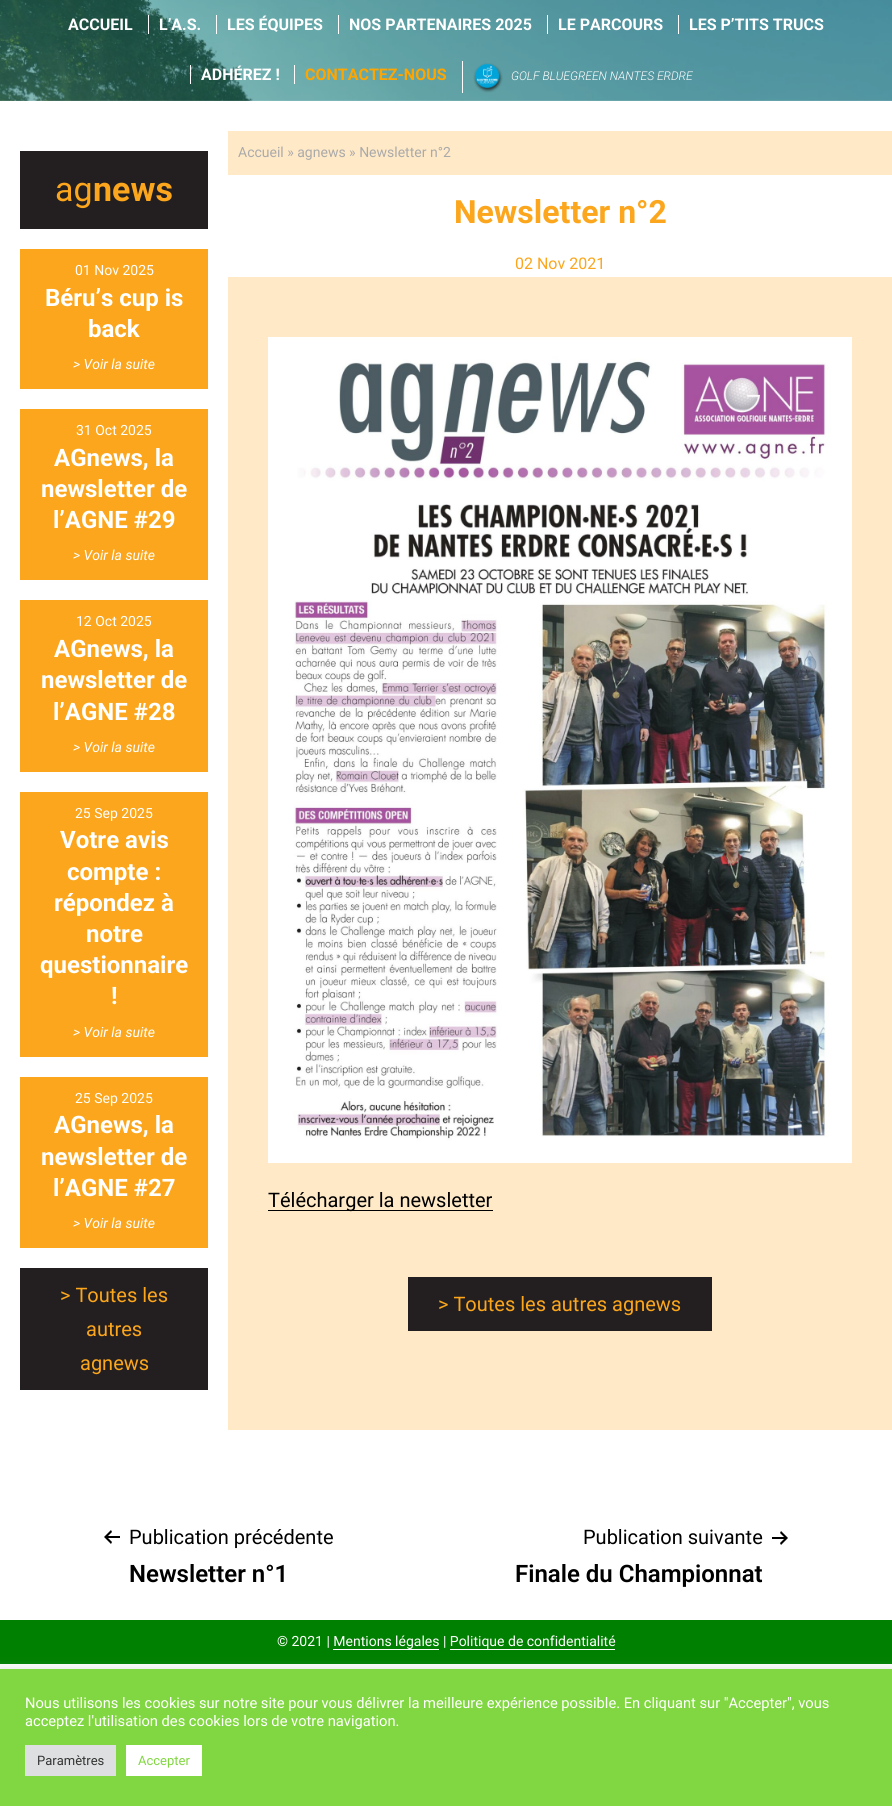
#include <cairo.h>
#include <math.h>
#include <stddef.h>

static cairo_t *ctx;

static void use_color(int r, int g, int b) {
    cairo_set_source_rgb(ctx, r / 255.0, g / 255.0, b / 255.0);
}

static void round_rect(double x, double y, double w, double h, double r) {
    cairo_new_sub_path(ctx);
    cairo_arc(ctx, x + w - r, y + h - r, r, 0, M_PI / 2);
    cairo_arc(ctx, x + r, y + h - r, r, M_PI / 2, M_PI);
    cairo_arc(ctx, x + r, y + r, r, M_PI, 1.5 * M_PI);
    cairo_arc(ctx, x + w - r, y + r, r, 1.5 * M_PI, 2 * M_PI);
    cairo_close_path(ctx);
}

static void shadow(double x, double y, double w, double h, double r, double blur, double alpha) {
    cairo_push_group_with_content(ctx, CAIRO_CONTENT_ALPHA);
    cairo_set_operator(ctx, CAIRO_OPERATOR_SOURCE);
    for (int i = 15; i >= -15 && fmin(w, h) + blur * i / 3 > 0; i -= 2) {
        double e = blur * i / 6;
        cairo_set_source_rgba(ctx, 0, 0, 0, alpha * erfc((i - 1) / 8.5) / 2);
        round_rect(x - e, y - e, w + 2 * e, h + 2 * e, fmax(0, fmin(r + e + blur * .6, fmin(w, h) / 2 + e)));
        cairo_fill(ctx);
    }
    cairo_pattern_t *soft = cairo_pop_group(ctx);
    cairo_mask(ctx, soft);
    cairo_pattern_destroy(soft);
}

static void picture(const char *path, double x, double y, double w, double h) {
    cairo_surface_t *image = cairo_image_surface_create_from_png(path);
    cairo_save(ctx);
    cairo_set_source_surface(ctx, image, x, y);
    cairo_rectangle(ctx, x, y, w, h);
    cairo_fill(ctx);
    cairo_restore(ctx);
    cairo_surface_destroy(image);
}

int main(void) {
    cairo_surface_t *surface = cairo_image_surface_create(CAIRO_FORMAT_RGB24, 892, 1806);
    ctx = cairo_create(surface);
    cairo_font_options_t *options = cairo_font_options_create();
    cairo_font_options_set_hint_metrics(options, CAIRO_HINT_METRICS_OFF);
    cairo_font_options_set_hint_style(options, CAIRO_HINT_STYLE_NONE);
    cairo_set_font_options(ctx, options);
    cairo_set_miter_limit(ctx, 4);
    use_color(255, 255, 255);
    cairo_paint(ctx);
    picture("img1.png", 0, 0, 892, 101);
    cairo_select_font_face(ctx, "Roboto", CAIRO_FONT_SLANT_NORMAL, CAIRO_FONT_WEIGHT_BOLD);
    cairo_set_font_size(ctx, 16);
    use_color(255, 255, 255);
    cairo_move_to(ctx, 68, 30);
    cairo_show_text(ctx, "ACCUEIL");
    cairo_move_to(ctx, 159, 30);
    cairo_show_text(ctx, "L’A.S.");
    cairo_rectangle(ctx, 148, 15, 1, 19);
    cairo_fill(ctx);
    cairo_move_to(ctx, 227, 30);
    cairo_show_text(ctx, "LES ÉQUIPES");
    cairo_rectangle(ctx, 216, 15, 1, 19);
    cairo_fill(ctx);
    cairo_move_to(ctx, 349, 30);
    cairo_show_text(ctx, "NOS PARTENAIRES 2025");
    cairo_rectangle(ctx, 338, 15, 1, 19);
    cairo_fill(ctx);
    cairo_move_to(ctx, 558, 30);
    cairo_show_text(ctx, "LE PARCOURS");
    cairo_rectangle(ctx, 547, 15, 1, 19);
    cairo_fill(ctx);
    cairo_move_to(ctx, 689, 30);
    cairo_show_text(ctx, "LES P’TITS TRUCS");
    cairo_rectangle(ctx, 678, 15, 1, 19);
    cairo_fill(ctx);
    cairo_move_to(ctx, 201, 80);
    cairo_show_text(ctx, "ADHÉREZ !");
    cairo_rectangle(ctx, 190, 65, 1, 19);
    cairo_fill(ctx);
    use_color(255, 165, 0);
    cairo_move_to(ctx, 305, 80);
    cairo_show_text(ctx, "CONTACTEZ-NOUS");
    use_color(255, 255, 255);
    cairo_rectangle(ctx, 294, 65, 1, 19);
    cairo_fill(ctx);
    cairo_rectangle(ctx, 462, 61, 1, 32);
    cairo_fill(ctx);
    picture("img2.png", 473, 63, 30, 30);
    cairo_select_font_face(ctx, "Roboto Light", CAIRO_FONT_SLANT_ITALIC, CAIRO_FONT_WEIGHT_NORMAL);
    cairo_set_font_size(ctx, 12);
    cairo_move_to(ctx, 511, 80);
    cairo_show_text(ctx, "GOLF BLUEGREEN NANTES ERDRE");
    use_color(35, 31, 32);
    cairo_rectangle(ctx, 20, 151, 188, 78);
    cairo_fill(ctx);
    cairo_select_font_face(ctx, "Roboto", CAIRO_FONT_SLANT_NORMAL, CAIRO_FONT_WEIGHT_NORMAL);
    cairo_set_font_size(ctx, 34);
    use_color(251, 166, 28);
    cairo_move_to(ctx, 55, 201);
    cairo_show_text(ctx, "ag");
    cairo_select_font_face(ctx, "Roboto", CAIRO_FONT_SLANT_NORMAL, CAIRO_FONT_WEIGHT_BOLD);
    cairo_move_to(ctx, 93, 201);
    cairo_show_text(ctx, "news");
    cairo_rectangle(ctx, 20, 249, 188, 140);
    cairo_fill(ctx);
    cairo_select_font_face(ctx, "Roboto", CAIRO_FONT_SLANT_NORMAL, CAIRO_FONT_WEIGHT_NORMAL);
    cairo_set_font_size(ctx, 14);
    use_color(255, 255, 255);
    cairo_move_to(ctx, 75, 275);
    cairo_show_text(ctx, "01 Nov 2025");
    cairo_select_font_face(ctx, "Roboto", CAIRO_FONT_SLANT_NORMAL, CAIRO_FONT_WEIGHT_BOLD);
    cairo_set_font_size(ctx, 24);
    cairo_move_to(ctx, 45, 306);
    cairo_show_text(ctx, "Béru’s cup is");
    cairo_move_to(ctx, 88, 337);
    cairo_show_text(ctx, "back");
    cairo_select_font_face(ctx, "Roboto", CAIRO_FONT_SLANT_ITALIC, CAIRO_FONT_WEIGHT_NORMAL);
    cairo_set_font_size(ctx, 14);
    cairo_move_to(ctx, 73, 369);
    cairo_show_text(ctx, "> Voir la suite");
    use_color(251, 166, 28);
    cairo_rectangle(ctx, 20, 409, 188, 171);
    cairo_fill(ctx);
    cairo_select_font_face(ctx, "Roboto", CAIRO_FONT_SLANT_NORMAL, CAIRO_FONT_WEIGHT_NORMAL);
    use_color(255, 255, 255);
    cairo_move_to(ctx, 76, 435);
    cairo_show_text(ctx, "31 Oct 2025");
    cairo_select_font_face(ctx, "Roboto", CAIRO_FONT_SLANT_NORMAL, CAIRO_FONT_WEIGHT_BOLD);
    cairo_set_font_size(ctx, 24);
    cairo_move_to(ctx, 54, 466);
    cairo_show_text(ctx, "AGnews, la");
    cairo_move_to(ctx, 41, 497);
    cairo_show_text(ctx, "newsletter de");
    cairo_move_to(ctx, 53, 528);
    cairo_show_text(ctx, "l’AGNE #29");
    cairo_select_font_face(ctx, "Roboto", CAIRO_FONT_SLANT_ITALIC, CAIRO_FONT_WEIGHT_NORMAL);
    cairo_set_font_size(ctx, 14);
    cairo_move_to(ctx, 73, 560);
    cairo_show_text(ctx, "> Voir la suite");
    use_color(251, 166, 28);
    cairo_rectangle(ctx, 20, 600, 188, 172);
    cairo_fill(ctx);
    cairo_select_font_face(ctx, "Roboto", CAIRO_FONT_SLANT_NORMAL, CAIRO_FONT_WEIGHT_NORMAL);
    use_color(255, 255, 255);
    cairo_move_to(ctx, 76, 626);
    cairo_show_text(ctx, "12 Oct 2025");
    cairo_select_font_face(ctx, "Roboto", CAIRO_FONT_SLANT_NORMAL, CAIRO_FONT_WEIGHT_BOLD);
    cairo_set_font_size(ctx, 24);
    cairo_move_to(ctx, 54, 657);
    cairo_show_text(ctx, "AGnews, la");
    cairo_move_to(ctx, 41, 688);
    cairo_show_text(ctx, "newsletter de");
    cairo_move_to(ctx, 53, 720);
    cairo_show_text(ctx, "l’AGNE #28");
    cairo_select_font_face(ctx, "Roboto", CAIRO_FONT_SLANT_ITALIC, CAIRO_FONT_WEIGHT_NORMAL);
    cairo_set_font_size(ctx, 14);
    cairo_move_to(ctx, 73, 752);
    cairo_show_text(ctx, "> Voir la suite");
    use_color(251, 166, 28);
    cairo_rectangle(ctx, 20, 792, 188, 265);
    cairo_fill(ctx);
    cairo_select_font_face(ctx, "Roboto", CAIRO_FONT_SLANT_NORMAL, CAIRO_FONT_WEIGHT_NORMAL);
    use_color(255, 255, 255);
    cairo_move_to(ctx, 75, 818);
    cairo_show_text(ctx, "25 Sep 2025");
    cairo_select_font_face(ctx, "Roboto", CAIRO_FONT_SLANT_NORMAL, CAIRO_FONT_WEIGHT_BOLD);
    cairo_set_font_size(ctx, 24);
    cairo_move_to(ctx, 60, 848);
    cairo_show_text(ctx, "Votre avis");
    cairo_move_to(ctx, 67, 880);
    cairo_show_text(ctx, "compte :");
    cairo_move_to(ctx, 54, 911);
    cairo_show_text(ctx, "répondez à");
    cairo_move_to(ctx, 86, 942);
    cairo_show_text(ctx, "notre");
    cairo_move_to(ctx, 40, 973);
    cairo_show_text(ctx, "questionnaire");
    cairo_move_to(ctx, 111, 1004);
    cairo_show_text(ctx, "!");
    cairo_select_font_face(ctx, "Roboto", CAIRO_FONT_SLANT_ITALIC, CAIRO_FONT_WEIGHT_NORMAL);
    cairo_set_font_size(ctx, 14);
    cairo_move_to(ctx, 73, 1037);
    cairo_show_text(ctx, "> Voir la suite");
    use_color(251, 166, 28);
    cairo_rectangle(ctx, 20, 1077, 188, 171);
    cairo_fill(ctx);
    cairo_select_font_face(ctx, "Roboto", CAIRO_FONT_SLANT_NORMAL, CAIRO_FONT_WEIGHT_NORMAL);
    use_color(255, 255, 255);
    cairo_move_to(ctx, 75, 1103);
    cairo_show_text(ctx, "25 Sep 2025");
    cairo_select_font_face(ctx, "Roboto", CAIRO_FONT_SLANT_NORMAL, CAIRO_FONT_WEIGHT_BOLD);
    cairo_set_font_size(ctx, 24);
    cairo_move_to(ctx, 54, 1133);
    cairo_show_text(ctx, "AGnews, la");
    cairo_move_to(ctx, 41, 1165);
    cairo_show_text(ctx, "newsletter de");
    cairo_move_to(ctx, 53, 1196);
    cairo_show_text(ctx, "l’AGNE #27");
    cairo_select_font_face(ctx, "Roboto", CAIRO_FONT_SLANT_ITALIC, CAIRO_FONT_WEIGHT_NORMAL);
    cairo_set_font_size(ctx, 14);
    cairo_move_to(ctx, 73, 1228);
    cairo_show_text(ctx, "> Voir la suite");
    use_color(35, 31, 32);
    cairo_rectangle(ctx, 20, 1268, 188, 122);
    cairo_fill(ctx);
    cairo_select_font_face(ctx, "Roboto", CAIRO_FONT_SLANT_NORMAL, CAIRO_FONT_WEIGHT_NORMAL);
    cairo_set_font_size(ctx, 20);
    use_color(251, 166, 28);
    cairo_move_to(ctx, 60, 1302);
    cairo_show_text(ctx, "> Toutes les");
    cairo_move_to(ctx, 86, 1336);
    cairo_show_text(ctx, "autres");
    cairo_move_to(ctx, 80, 1370);
    cairo_show_text(ctx, "agnews");
    use_color(255, 233, 199);
    cairo_rectangle(ctx, 228, 131, 664, 1299);
    cairo_fill(ctx);
    cairo_set_font_size(ctx, 14);
    use_color(170, 170, 170);
    cairo_move_to(ctx, 238, 157);
    cairo_show_text(ctx, "Accueil » agnews » Newsletter n°2");
    use_color(255, 255, 255);
    cairo_rectangle(ctx, 228, 175, 664, 102);
    cairo_fill(ctx);
    cairo_select_font_face(ctx, "Roboto", CAIRO_FONT_SLANT_NORMAL, CAIRO_FONT_WEIGHT_BOLD);
    cairo_set_font_size(ctx, 32);
    use_color(251, 166, 28);
    cairo_move_to(ctx, 454, 223);
    cairo_show_text(ctx, "Newsletter n°2");
    cairo_select_font_face(ctx, "Roboto", CAIRO_FONT_SLANT_NORMAL, CAIRO_FONT_WEIGHT_NORMAL);
    cairo_set_font_size(ctx, 16);
    cairo_move_to(ctx, 515, 269);
    cairo_show_text(ctx, "02 Nov 2021");
    picture("img3.png", 268, 337, 584, 826);
    use_color(0, 0, 0);
    cairo_rectangle(ctx, 268, 1210, 225, 1);
    cairo_fill(ctx);
    cairo_set_font_size(ctx, 20);
    cairo_move_to(ctx, 268, 1207);
    cairo_show_text(ctx, "Télécharger la newsletter");
    use_color(35, 31, 32);
    cairo_rectangle(ctx, 408, 1277, 304, 54);
    cairo_fill(ctx);
    use_color(251, 166, 28);
    cairo_move_to(ctx, 438, 1311);
    cairo_show_text(ctx, "> Toutes les autres agnews");
    picture("img4.png", 104, 1530, 16, 14);
    use_color(0, 0, 0);
    cairo_move_to(ctx, 129, 1544);
    cairo_show_text(ctx, "Publication précédente");
    cairo_select_font_face(ctx, "Roboto SemiBold", CAIRO_FONT_SLANT_NORMAL, CAIRO_FONT_WEIGHT_NORMAL);
    cairo_set_font_size(ctx, 24);
    cairo_move_to(ctx, 129, 1582);
    cairo_show_text(ctx, "Newsletter n°1");
    cairo_select_font_face(ctx, "Roboto", CAIRO_FONT_SLANT_NORMAL, CAIRO_FONT_WEIGHT_NORMAL);
    cairo_set_font_size(ctx, 20);
    cairo_move_to(ctx, 583, 1544);
    cairo_show_text(ctx, "Publication suivante");
    picture("img5.png", 772, 1531, 16, 14);
    cairo_select_font_face(ctx, "Roboto SemiBold", CAIRO_FONT_SLANT_NORMAL, CAIRO_FONT_WEIGHT_NORMAL);
    cairo_set_font_size(ctx, 24);
    cairo_move_to(ctx, 515, 1582);
    cairo_show_text(ctx, "Finale du Championnat");
    use_color(0, 128, 0);
    cairo_rectangle(ctx, 0, 1620, 892, 44);
    cairo_fill(ctx);
    cairo_select_font_face(ctx, "Roboto", CAIRO_FONT_SLANT_NORMAL, CAIRO_FONT_WEIGHT_NORMAL);
    cairo_set_font_size(ctx, 14);
    use_color(255, 255, 255);
    cairo_move_to(ctx, 277, 1646);
    cairo_show_text(ctx, "© 2021 | Mentions légales | Politique de confidentialité");
    cairo_rectangle(ctx, 333, 1649, 106, 1);
    cairo_fill(ctx);
    cairo_rectangle(ctx, 450, 1649, 165, 1);
    cairo_fill(ctx);
    use_color(172, 171, 171);
    shadow(0, 1668, 892, 137, 0, 5, 0.3);
    use_color(129, 215, 66);
    cairo_rectangle(ctx, 0, 1669, 892, 137);
    cairo_fill(ctx);
    cairo_set_font_size(ctx, 14.67);
    use_color(255, 255, 255);
    cairo_move_to(ctx, 25, 1708);
    cairo_show_text(ctx, "Nous utilisons les cookies sur notre site pour vous délivrer la meilleure expérience possible. En cliquant sur \"Accepter\", vous");
    cairo_move_to(ctx, 25, 1726);
    cairo_show_text(ctx, "acceptez l'utilisation des cookies lors de votre navigation.");
    use_color(222, 223, 224);
    cairo_rectangle(ctx, 25, 1745, 91, 31);
    cairo_fill(ctx);
    cairo_set_font_size(ctx, 13);
    use_color(51, 51, 51);
    cairo_move_to(ctx, 37, 1765);
    cairo_show_text(ctx, "Paramètres");
    use_color(255, 255, 255);
    cairo_rectangle(ctx, 126, 1745, 76, 31);
    cairo_fill(ctx);
    use_color(129, 215, 66);
    cairo_move_to(ctx, 138, 1765);
    cairo_show_text(ctx, "Accepter");
    cairo_surface_write_to_png(surface, "result.png");
    cairo_font_options_destroy(options);
    cairo_destroy(ctx);
    cairo_surface_destroy(surface);
    return 0;
}
